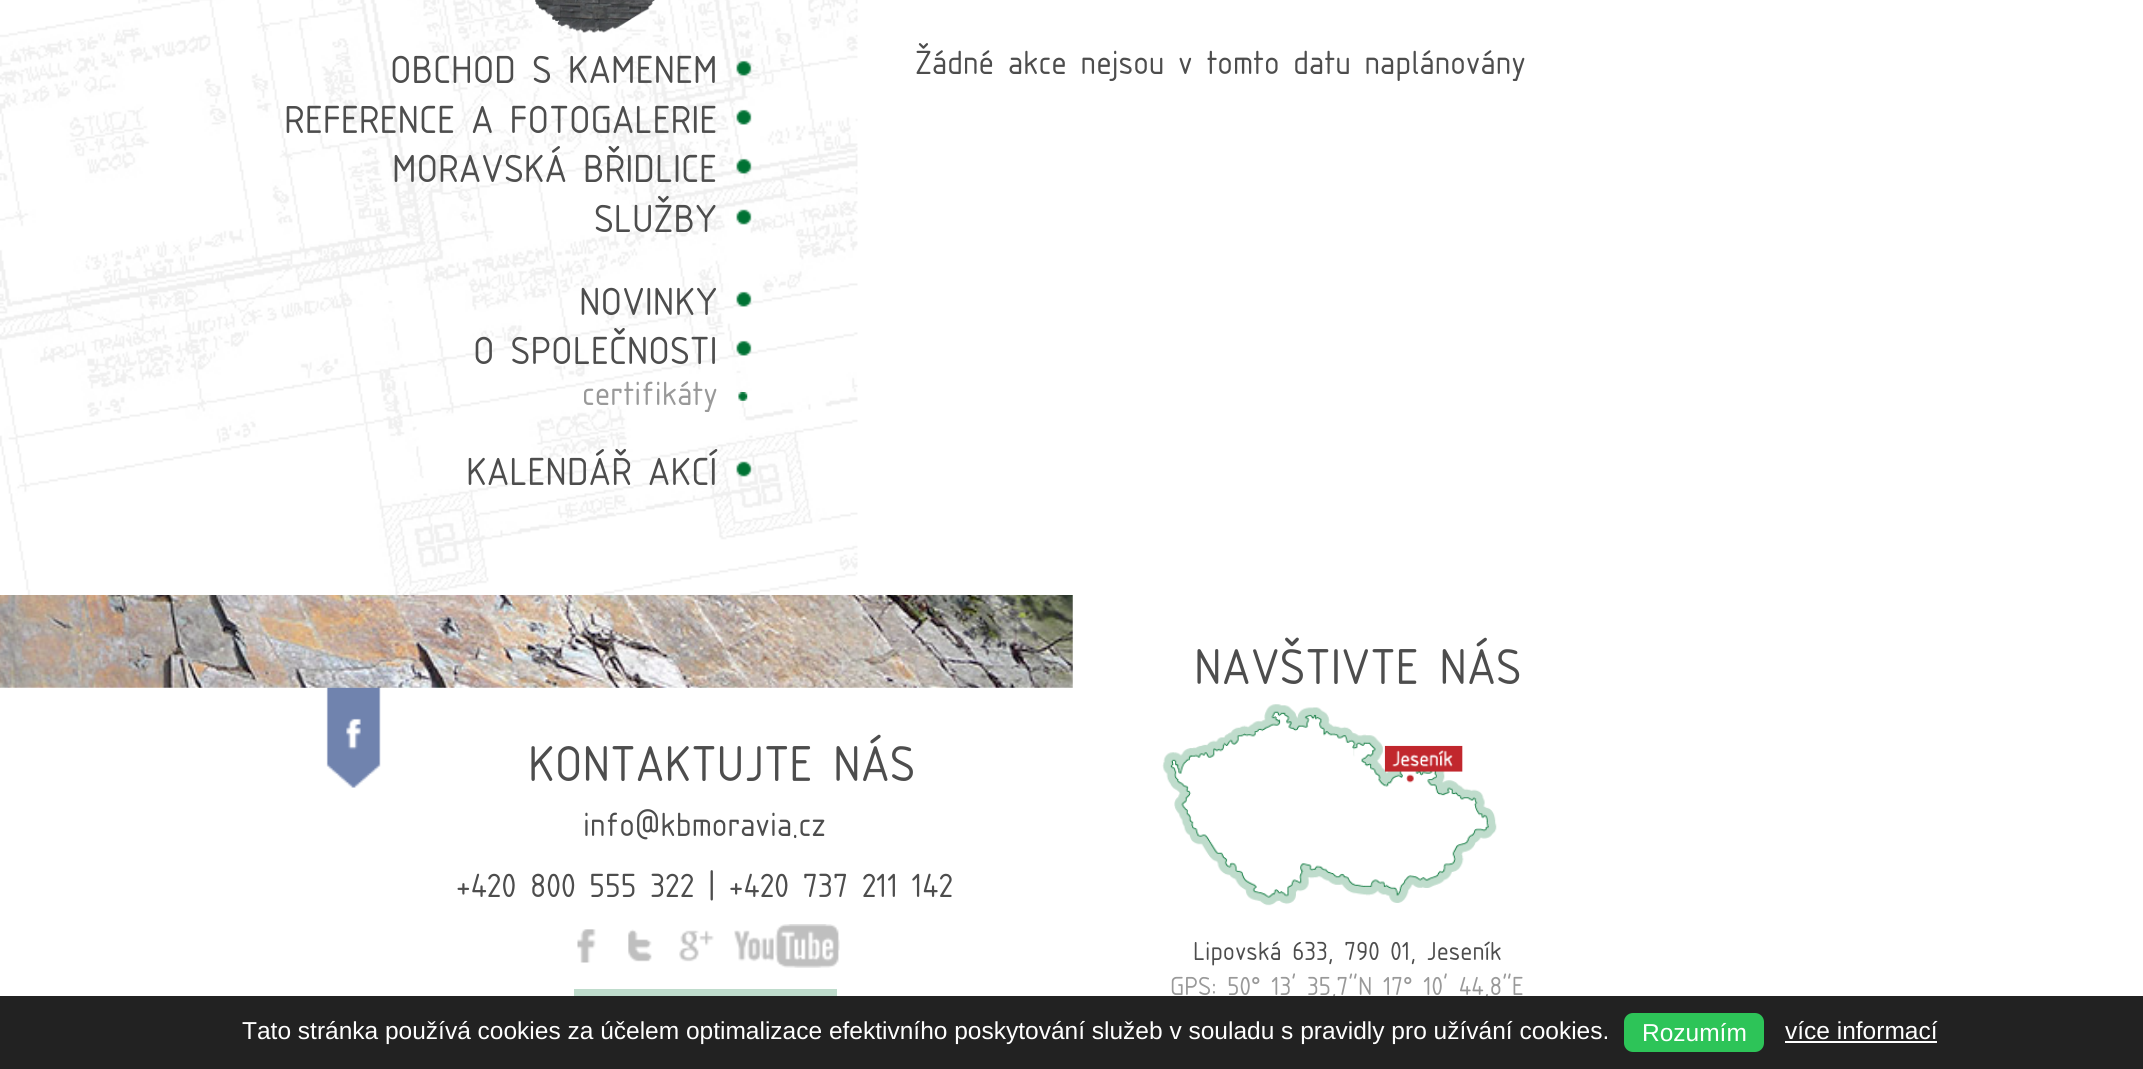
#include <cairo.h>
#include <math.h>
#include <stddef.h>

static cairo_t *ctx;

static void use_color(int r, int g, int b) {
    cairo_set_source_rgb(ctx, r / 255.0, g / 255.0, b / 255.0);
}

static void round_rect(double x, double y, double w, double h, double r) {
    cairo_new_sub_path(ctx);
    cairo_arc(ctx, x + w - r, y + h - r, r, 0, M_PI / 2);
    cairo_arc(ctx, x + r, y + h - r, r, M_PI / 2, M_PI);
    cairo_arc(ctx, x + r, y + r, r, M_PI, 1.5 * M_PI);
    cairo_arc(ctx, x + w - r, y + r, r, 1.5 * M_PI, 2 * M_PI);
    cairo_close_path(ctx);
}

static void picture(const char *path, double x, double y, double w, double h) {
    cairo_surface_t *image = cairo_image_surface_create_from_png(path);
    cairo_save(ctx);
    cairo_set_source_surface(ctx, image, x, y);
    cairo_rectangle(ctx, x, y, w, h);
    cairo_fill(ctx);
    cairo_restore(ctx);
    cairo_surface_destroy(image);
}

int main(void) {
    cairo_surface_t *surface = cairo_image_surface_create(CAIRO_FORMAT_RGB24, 2143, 1069);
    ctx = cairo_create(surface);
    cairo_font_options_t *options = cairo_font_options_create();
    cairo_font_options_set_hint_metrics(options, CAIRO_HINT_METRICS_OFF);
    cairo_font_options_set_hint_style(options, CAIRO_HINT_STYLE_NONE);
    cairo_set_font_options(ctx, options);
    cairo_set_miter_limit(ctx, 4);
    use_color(255, 255, 255);
    cairo_paint(ctx);
    picture("img1.png", 0, 0, 858, 595);
    picture("img2.png", 535, 0, 120, 33);
    cairo_select_font_face(ctx, "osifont", CAIRO_FONT_SLANT_NORMAL, CAIRO_FONT_WEIGHT_NORMAL);
    cairo_set_font_size(ctx, 36.75);
    use_color(77, 77, 77);
    cairo_move_to(ctx, 390, 83);
    cairo_show_text(ctx, "OBCHOD S KAMENEM");
    picture("img3.png", 736, 60, 16, 16);
    cairo_move_to(ctx, 284, 133);
    cairo_show_text(ctx, "REFERENCE A FOTOGALERIE");
    picture("img4.png", 736, 109, 16, 16);
    cairo_move_to(ctx, 392, 182);
    cairo_show_text(ctx, "MORAVSKÁ BŘIDLICE");
    picture("img5.png", 736, 158, 16, 16);
    cairo_move_to(ctx, 594, 232);
    cairo_show_text(ctx, "SLUŽBY");
    picture("img6.png", 736, 209, 16, 16);
    cairo_move_to(ctx, 579, 315);
    cairo_show_text(ctx, "NOVINKY");
    picture("img7.png", 736, 291, 16, 16);
    cairo_move_to(ctx, 473, 364);
    cairo_show_text(ctx, "O SPOLEČNOSTI");
    picture("img8.png", 736, 340, 16, 16);
    cairo_set_font_size(ctx, 31.5);
    use_color(153, 153, 153);
    cairo_move_to(ctx, 582, 405);
    cairo_show_text(ctx, "certifikáty");
    picture("img9.png", 738, 392, 10, 9);
    cairo_set_font_size(ctx, 36.75);
    use_color(77, 77, 77);
    cairo_move_to(ctx, 466, 485);
    cairo_show_text(ctx, "KALENDÁŘ AKCÍ");
    picture("img10.png", 736, 461, 16, 16);
    cairo_set_font_size(ctx, 31.5);
    cairo_move_to(ctx, 915, 74);
    cairo_show_text(ctx, "Žádné akce nejsou v tomto datu naplánovány");
    picture("img11.png", 0, 595, 1073, 93);
    picture("img12.png", 326, 687, 55, 101);
    cairo_set_font_size(ctx, 47.25);
    cairo_move_to(ctx, 528, 781);
    cairo_show_text(ctx, "KONTAKTUJTE NÁS");
    cairo_set_font_size(ctx, 31.5);
    cairo_move_to(ctx, 583, 836);
    cairo_show_text(ctx, "info@kbmoravia.cz");
    cairo_move_to(ctx, 456, 897);
    cairo_show_text(ctx, "+420 800 555 322 | +420 737 211 142");
    picture("img13.png", 577, 929, 19, 34);
    picture("img14.png", 628, 929, 24, 33);
    picture("img15.png", 679, 930, 35, 32);
    picture("img16.png", 734, 924, 106, 44);
    use_color(191, 220, 204);
    cairo_rectangle(ctx, 574, 989, 263, 7);
    cairo_fill(ctx);
    cairo_set_font_size(ctx, 47.25);
    use_color(77, 77, 77);
    cairo_move_to(ctx, 1194, 684);
    cairo_show_text(ctx, "NAVŠTIVTE NÁS");
    picture("img17.png", 1162, 704, 335, 202);
    cairo_set_font_size(ctx, 24.5);
    cairo_move_to(ctx, 1193, 960);
    cairo_show_text(ctx, "Lipovská 633, 790 01, Jeseník");
    use_color(153, 153, 153);
    cairo_move_to(ctx, 1170, 995);
    cairo_show_text(ctx, "GPS: 50° 13' 35,7\"N 17° 10' 44,8\"E");
    use_color(34, 34, 34);
    cairo_rectangle(ctx, 0, 996, 2143, 73);
    cairo_fill(ctx);
    cairo_select_font_face(ctx, "Liberation Sans", CAIRO_FONT_SLANT_NORMAL, CAIRO_FONT_WEIGHT_NORMAL);
    use_color(255, 255, 255);
    cairo_move_to(ctx, 242, 1039);
    cairo_show_text(ctx, "Tato stránka používá cookies za účelem optimalizace efektivního poskytování služeb v souladu s pravidly pro užívání cookies.");
    use_color(45, 196, 88);
    round_rect(1624, 1013, 140, 39, 9);
    cairo_fill(ctx);
    use_color(255, 255, 255);
    cairo_move_to(ctx, 1642, 1041);
    cairo_show_text(ctx, "Rozumím");
    cairo_move_to(ctx, 1785, 1039);
    cairo_show_text(ctx, "více informací");
    cairo_rectangle(ctx, 1785, 1041, 152, 2);
    cairo_fill(ctx);
    cairo_surface_write_to_png(surface, "result.png");
    cairo_font_options_destroy(options);
    cairo_destroy(ctx);
    cairo_surface_destroy(surface);
    return 0;
}
